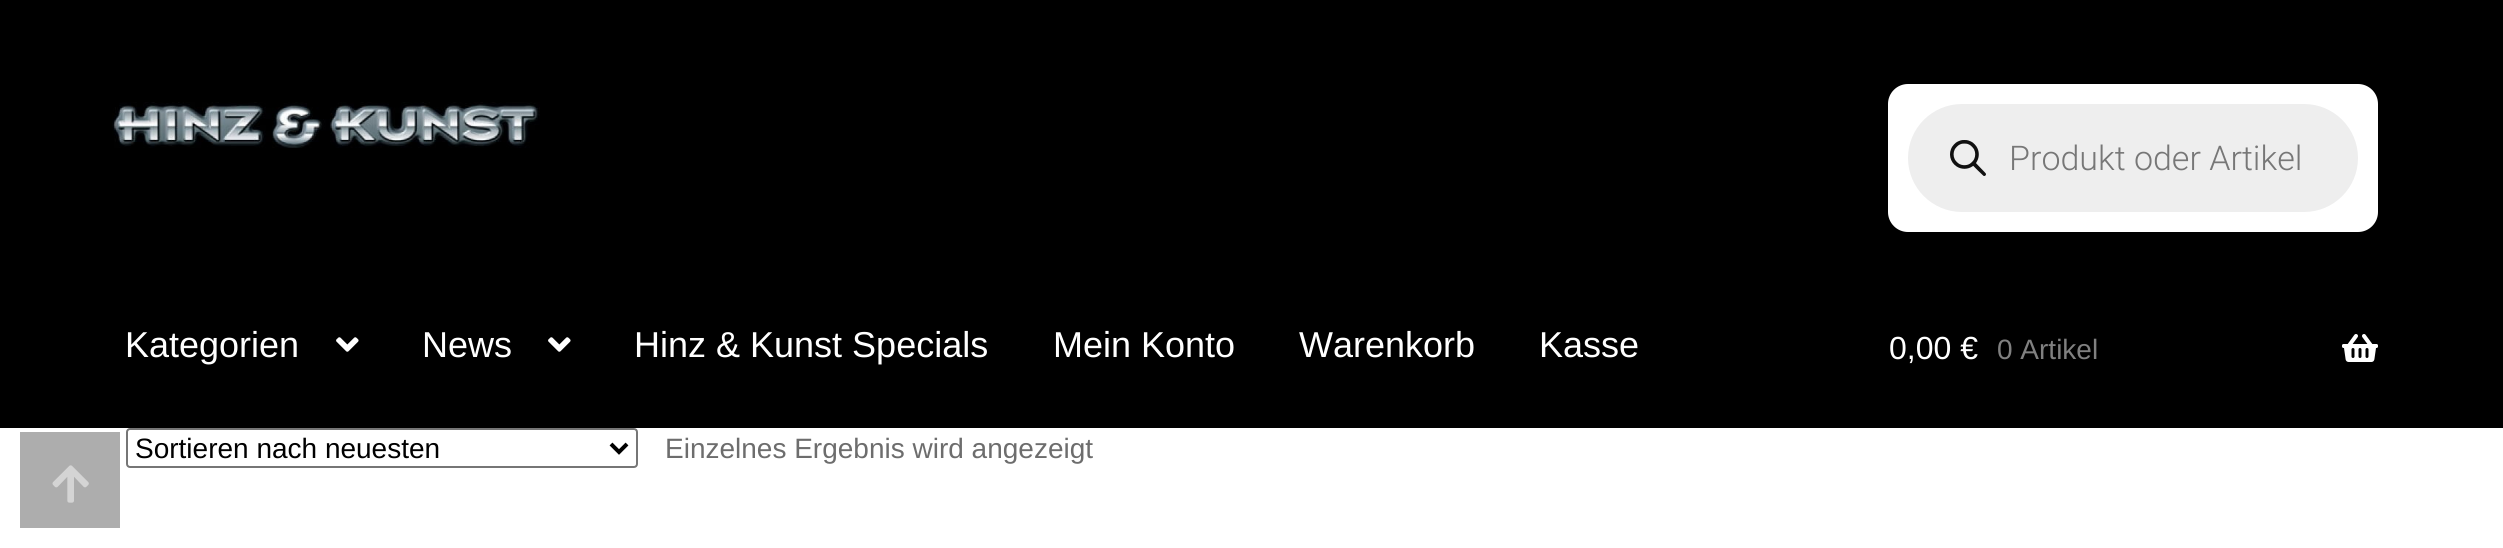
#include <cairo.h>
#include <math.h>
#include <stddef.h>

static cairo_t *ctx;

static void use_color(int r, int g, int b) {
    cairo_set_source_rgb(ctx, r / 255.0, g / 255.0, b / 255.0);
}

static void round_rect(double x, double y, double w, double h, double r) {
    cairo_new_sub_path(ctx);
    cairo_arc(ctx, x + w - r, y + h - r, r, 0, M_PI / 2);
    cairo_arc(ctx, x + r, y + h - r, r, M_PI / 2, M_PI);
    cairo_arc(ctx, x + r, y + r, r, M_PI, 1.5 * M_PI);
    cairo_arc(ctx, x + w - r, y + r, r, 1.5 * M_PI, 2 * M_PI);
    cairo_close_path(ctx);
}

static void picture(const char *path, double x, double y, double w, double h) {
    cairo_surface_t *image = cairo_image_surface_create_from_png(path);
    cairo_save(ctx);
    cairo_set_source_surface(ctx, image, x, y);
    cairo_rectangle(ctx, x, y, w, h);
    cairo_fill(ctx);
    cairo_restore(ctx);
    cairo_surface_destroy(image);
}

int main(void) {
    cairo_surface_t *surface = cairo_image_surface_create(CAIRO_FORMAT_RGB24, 2503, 548);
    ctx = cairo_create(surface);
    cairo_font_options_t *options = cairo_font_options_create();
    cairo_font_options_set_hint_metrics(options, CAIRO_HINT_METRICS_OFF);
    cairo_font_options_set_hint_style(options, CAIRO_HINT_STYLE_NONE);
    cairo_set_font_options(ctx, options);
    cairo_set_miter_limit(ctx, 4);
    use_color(255, 255, 255);
    cairo_paint(ctx);
    use_color(0, 0, 0);
    cairo_rectangle(ctx, 0, 0, 2503, 428);
    cairo_fill(ctx);
    picture("img1.png", 112, 102, 428, 46);
    use_color(255, 255, 255);
    round_rect(1888, 84, 490, 148, 20);
    cairo_fill(ctx);
    use_color(238, 238, 238);
    round_rect(1908, 104, 450, 108, 54);
    cairo_fill(ctx);
    picture("img2.png", 1950, 140, 36, 36);
    cairo_select_font_face(ctx, "Roboto Light", CAIRO_FONT_SLANT_NORMAL, CAIRO_FONT_WEIGHT_NORMAL);
    cairo_set_font_size(ctx, 34);
    use_color(119, 119, 119);
    cairo_move_to(ctx, 2009, 170);
    cairo_show_text(ctx, "Produkt oder Artikel");
    cairo_select_font_face(ctx, "Liberation Sans", CAIRO_FONT_SLANT_NORMAL, CAIRO_FONT_WEIGHT_NORMAL);
    cairo_set_font_size(ctx, 36);
    use_color(255, 255, 255);
    cairo_move_to(ctx, 125, 357);
    cairo_show_text(ctx, "Kategorien");
    picture("img3.png", 336, 337, 23, 15);
    cairo_move_to(ctx, 422, 357);
    cairo_show_text(ctx, "News");
    picture("img3.png", 548, 337, 23, 15);
    cairo_move_to(ctx, 634, 357);
    cairo_show_text(ctx, "Hinz & Kunst Specials");
    cairo_move_to(ctx, 1053, 357);
    cairo_show_text(ctx, "Mein Konto");
    cairo_move_to(ctx, 1299, 357);
    cairo_show_text(ctx, "Warenkorb");
    cairo_move_to(ctx, 1539, 357);
    cairo_show_text(ctx, "Kasse");
    cairo_set_font_size(ctx, 32);
    cairo_move_to(ctx, 1889, 359);
    cairo_show_text(ctx, "0,00 €");
    cairo_set_font_size(ctx, 28);
    use_color(128, 128, 128);
    cairo_move_to(ctx, 1997, 359);
    cairo_show_text(ctx, "0 Artikel");
    picture("img4.png", 2342, 334, 36, 28);
    round_rect(127, 429, 510, 38, 3);
    use_color(118, 118, 118);
    cairo_stroke(ctx);
    cairo_new_path(ctx);
    cairo_move_to(ctx, 611, 444);
    cairo_line_to(ctx, 619, 452);
    cairo_line_to(ctx, 627, 444);
    use_color(0, 0, 0);
    cairo_set_line_width(ctx, 4);
    cairo_stroke(ctx);
    cairo_move_to(ctx, 135, 458);
    cairo_show_text(ctx, "Sortieren nach neuesten");
    use_color(109, 109, 109);
    cairo_move_to(ctx, 665, 458);
    cairo_show_text(ctx, "Einzelnes Ergebnis wird angezeigt");
    use_color(173, 173, 173);
    cairo_rectangle(ctx, 20, 432, 100, 96);
    cairo_fill(ctx);
    picture("img5.png", 52, 465, 37, 38);
    cairo_surface_write_to_png(surface, "result.png");
    cairo_font_options_destroy(options);
    cairo_destroy(ctx);
    cairo_surface_destroy(surface);
    return 0;
}
